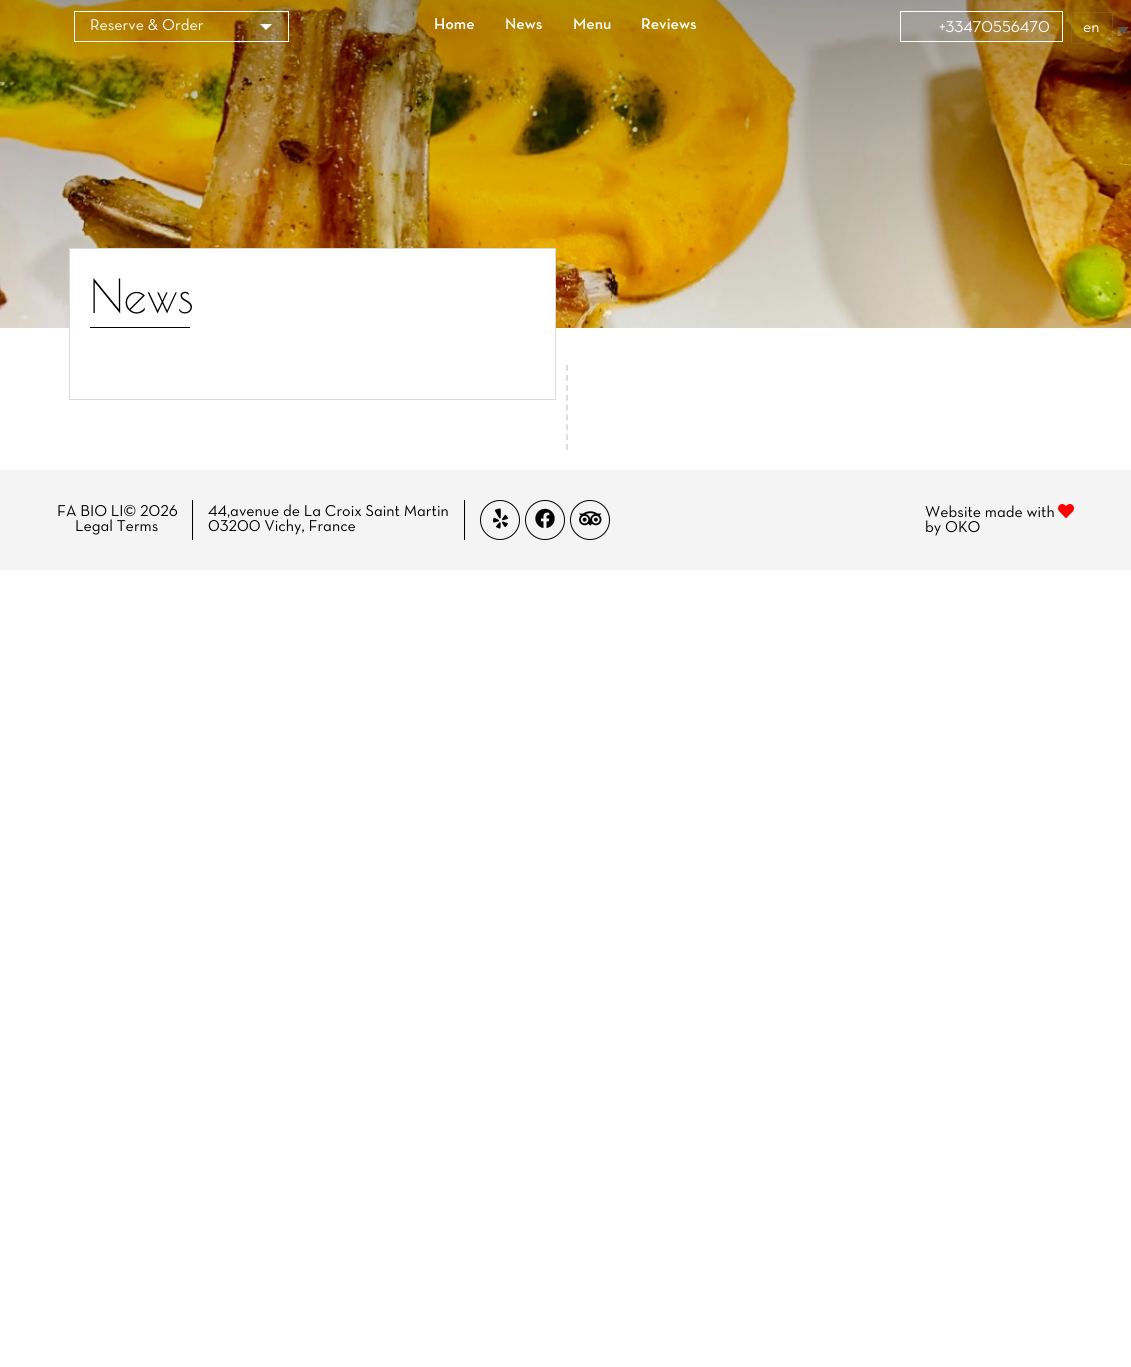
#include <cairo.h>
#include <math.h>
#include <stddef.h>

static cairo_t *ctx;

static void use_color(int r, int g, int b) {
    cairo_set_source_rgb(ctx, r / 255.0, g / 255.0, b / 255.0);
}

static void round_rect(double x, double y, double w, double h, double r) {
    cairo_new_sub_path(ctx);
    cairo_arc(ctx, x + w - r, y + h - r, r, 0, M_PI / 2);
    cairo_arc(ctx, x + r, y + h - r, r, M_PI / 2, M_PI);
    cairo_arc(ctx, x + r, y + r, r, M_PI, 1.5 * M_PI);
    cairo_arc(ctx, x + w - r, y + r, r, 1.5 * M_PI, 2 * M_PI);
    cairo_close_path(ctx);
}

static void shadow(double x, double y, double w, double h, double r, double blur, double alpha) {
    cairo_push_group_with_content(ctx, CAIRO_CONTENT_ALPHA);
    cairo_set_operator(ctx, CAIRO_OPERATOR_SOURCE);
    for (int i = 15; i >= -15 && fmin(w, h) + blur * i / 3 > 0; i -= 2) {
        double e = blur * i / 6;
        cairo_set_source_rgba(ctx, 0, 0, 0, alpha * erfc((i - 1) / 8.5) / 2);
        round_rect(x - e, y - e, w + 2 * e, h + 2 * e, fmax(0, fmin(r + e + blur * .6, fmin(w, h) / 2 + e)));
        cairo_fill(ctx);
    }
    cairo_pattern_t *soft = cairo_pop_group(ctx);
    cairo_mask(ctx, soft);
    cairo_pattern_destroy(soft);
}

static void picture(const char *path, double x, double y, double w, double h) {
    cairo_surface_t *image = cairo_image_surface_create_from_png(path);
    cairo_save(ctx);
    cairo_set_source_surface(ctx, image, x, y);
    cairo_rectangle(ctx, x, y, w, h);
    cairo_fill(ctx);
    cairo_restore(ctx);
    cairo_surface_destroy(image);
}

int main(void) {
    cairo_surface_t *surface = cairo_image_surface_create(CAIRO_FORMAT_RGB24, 1131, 1367);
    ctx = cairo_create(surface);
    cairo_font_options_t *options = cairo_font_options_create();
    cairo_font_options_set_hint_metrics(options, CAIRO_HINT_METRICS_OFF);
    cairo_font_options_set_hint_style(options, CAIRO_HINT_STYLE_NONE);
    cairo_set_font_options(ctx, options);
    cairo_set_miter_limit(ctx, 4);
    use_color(255, 255, 255);
    cairo_paint(ctx);
    picture("img1.png", 0, 0, 1131, 328);
    cairo_rectangle(ctx, 74.5, 11.5, 214, 30);
    use_color(255, 255, 255);
    cairo_set_line_width(ctx, 1);
    cairo_stroke(ctx);
    cairo_select_font_face(ctx, "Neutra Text", CAIRO_FONT_SLANT_NORMAL, CAIRO_FONT_WEIGHT_NORMAL);
    cairo_set_font_size(ctx, 16);
    cairo_move_to(ctx, 90, 30);
    cairo_show_text(ctx, "Reserve & Order");
    cairo_new_path(ctx);
    cairo_move_to(ctx, 260, 24);
    cairo_line_to(ctx, 272, 24);
    cairo_line_to(ctx, 266, 30);
    cairo_close_path(ctx);
    cairo_fill(ctx);
    use_color(146, 118, 1);
    cairo_move_to(ctx, 164, 98);
    cairo_show_text(ctx, "a");
    cairo_select_font_face(ctx, "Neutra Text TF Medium", CAIRO_FONT_SLANT_NORMAL, CAIRO_FONT_WEIGHT_NORMAL);
    use_color(255, 255, 255);
    cairo_move_to(ctx, 434, 29);
    cairo_show_text(ctx, "Home");
    cairo_move_to(ctx, 505, 29);
    cairo_show_text(ctx, "News");
    cairo_move_to(ctx, 573, 29);
    cairo_show_text(ctx, "Menu");
    cairo_move_to(ctx, 641, 29);
    cairo_show_text(ctx, "Reviews");
    cairo_rectangle(ctx, 900.5, 11.5, 162, 30);
    cairo_stroke(ctx);
    cairo_select_font_face(ctx, "Neutra Text", CAIRO_FONT_SLANT_NORMAL, CAIRO_FONT_WEIGHT_NORMAL);
    cairo_move_to(ctx, 939, 32);
    cairo_show_text(ctx, "+33470556470");
    cairo_save(ctx);
    cairo_set_fill_rule(ctx, CAIRO_FILL_RULE_EVEN_ODD);
    cairo_new_path(ctx);
    cairo_move_to(ctx, 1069, 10);
    cairo_line_to(ctx, 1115, 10);
    cairo_line_to(ctx, 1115, 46);
    cairo_line_to(ctx, 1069, 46);
    cairo_close_path(ctx);
    cairo_move_to(ctx, 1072, 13);
    cairo_line_to(ctx, 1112, 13);
    cairo_line_to(ctx, 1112, 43);
    cairo_line_to(ctx, 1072, 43);
    cairo_close_path(ctx);
    cairo_clip(ctx);
    use_color(136, 136, 136);
    shadow(1072, 13, 40, 30, 0, 0.5, 1);
    cairo_restore(ctx);
    cairo_move_to(ctx, 1083, 32);
    cairo_show_text(ctx, "en");
    use_color(85, 85, 85);
    cairo_new_path(ctx);
    cairo_move_to(ctx, 1117, 27);
    cairo_line_to(ctx, 1129, 27);
    cairo_line_to(ctx, 1123, 34);
    cairo_close_path(ctx);
    cairo_fill(ctx);
    use_color(255, 255, 255);
    cairo_rectangle(ctx, 70, 249, 485, 79);
    cairo_fill(ctx);
    cairo_rectangle(ctx, 69.5, 248.5, 486, 151);
    use_color(217, 217, 217);
    cairo_stroke(ctx);
    cairo_select_font_face(ctx, "Poiret One", CAIRO_FONT_SLANT_NORMAL, CAIRO_FONT_WEIGHT_NORMAL);
    cairo_set_font_size(ctx, 46);
    use_color(0, 0, 0);
    cairo_move_to(ctx, 90, 313);
    cairo_show_text(ctx, "News");
    cairo_rectangle(ctx, 90, 327, 100, 1);
    cairo_fill(ctx);
    cairo_new_path(ctx);
    cairo_move_to(ctx, 567, 365);
    cairo_line_to(ctx, 567, 450);
    use_color(220, 220, 220);
    cairo_set_line_width(ctx, 2);
    cairo_set_dash(ctx, (double[]){6, 3.88}, 2, 0);
    cairo_stroke(ctx);
    use_color(244, 244, 244);
    cairo_rectangle(ctx, 0, 470, 1131, 100);
    cairo_fill(ctx);
    cairo_select_font_face(ctx, "Neutra Text", CAIRO_FONT_SLANT_NORMAL, CAIRO_FONT_WEIGHT_NORMAL);
    cairo_set_font_size(ctx, 16);
    use_color(0, 0, 0);
    cairo_move_to(ctx, 57, 516);
    cairo_show_text(ctx, "FA BIO LI© 2026");
    cairo_move_to(ctx, 75, 531);
    cairo_show_text(ctx, "Legal Terms");
    cairo_rectangle(ctx, 192, 500, 1, 40);
    cairo_fill(ctx);
    cairo_move_to(ctx, 208, 516);
    cairo_show_text(ctx, "44,avenue de La Croix Saint Martin");
    cairo_move_to(ctx, 208, 531);
    cairo_show_text(ctx, "03200 Vichy, France");
    cairo_rectangle(ctx, 464, 500, 1, 40);
    cairo_fill(ctx);
    cairo_arc(ctx, 500, 520, 19.5, 0, 2 * M_PI);
    cairo_set_line_width(ctx, 1);
    cairo_set_dash(ctx, NULL, 0, 0);
    cairo_stroke(ctx);
    picture("img2.png", 493, 508, 15, 21);
    cairo_arc(ctx, 545, 520, 19.5, 0, 2 * M_PI);
    cairo_stroke(ctx);
    picture("img3.png", 535, 508, 20, 20);
    cairo_arc(ctx, 590, 520, 19.5, 0, 2 * M_PI);
    cairo_stroke(ctx);
    picture("img4.png", 579, 511, 23, 15);
    cairo_move_to(ctx, 925, 517);
    cairo_show_text(ctx, "Website made with");
    picture("img5.png", 1058, 504, 16, 14);
    cairo_move_to(ctx, 925, 532);
    cairo_show_text(ctx, "by OKO");
    cairo_surface_write_to_png(surface, "result.png");
    cairo_font_options_destroy(options);
    cairo_destroy(ctx);
    cairo_surface_destroy(surface);
    return 0;
}
